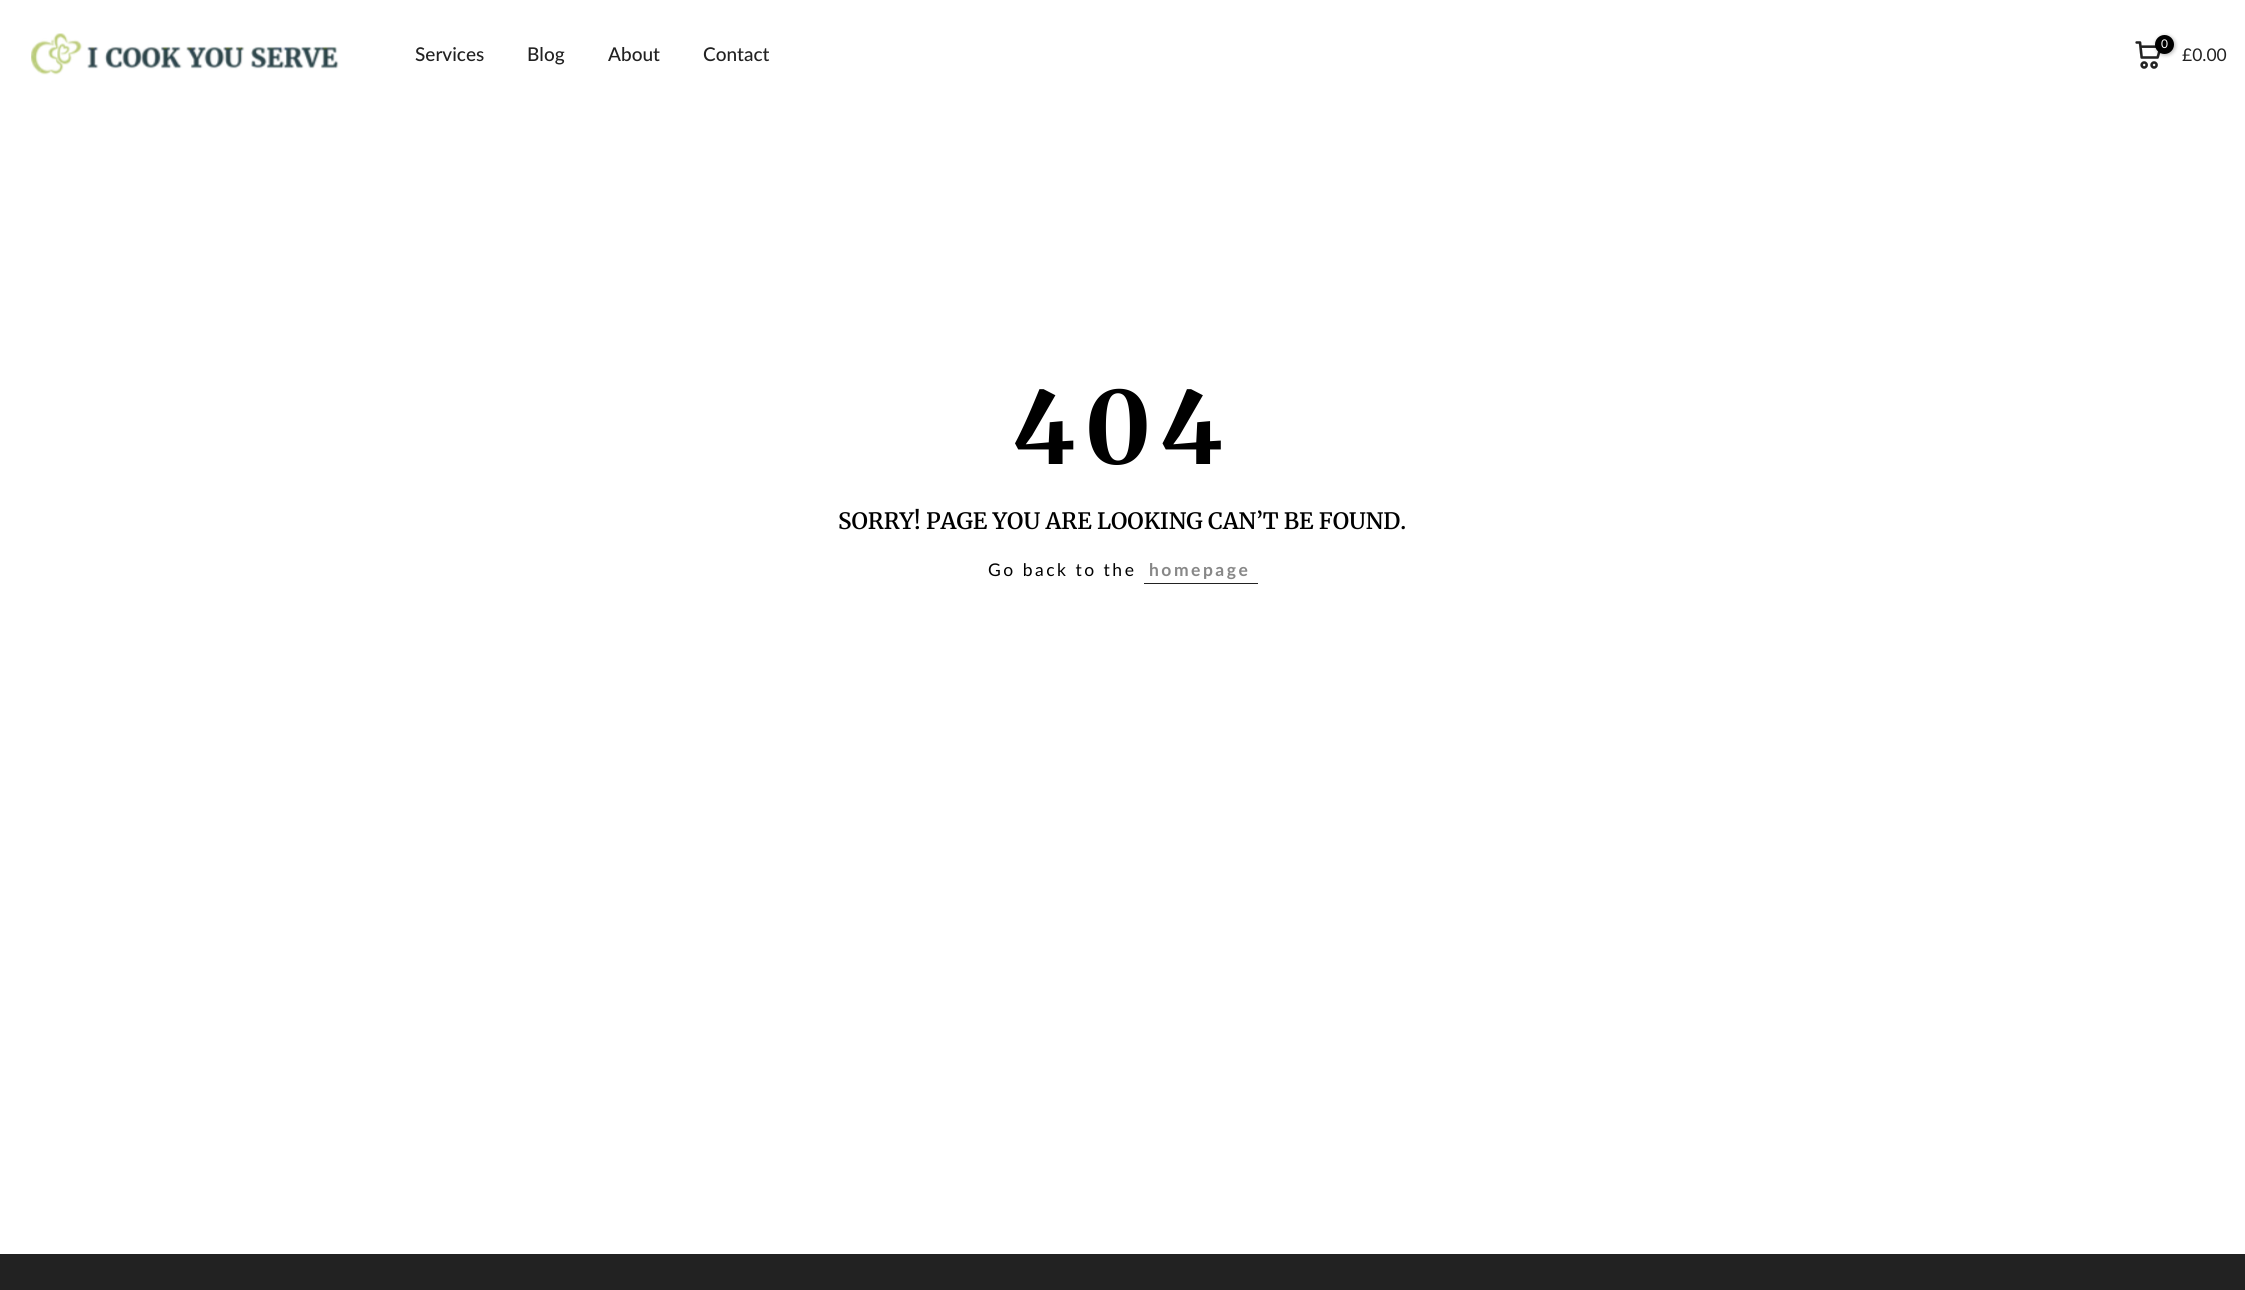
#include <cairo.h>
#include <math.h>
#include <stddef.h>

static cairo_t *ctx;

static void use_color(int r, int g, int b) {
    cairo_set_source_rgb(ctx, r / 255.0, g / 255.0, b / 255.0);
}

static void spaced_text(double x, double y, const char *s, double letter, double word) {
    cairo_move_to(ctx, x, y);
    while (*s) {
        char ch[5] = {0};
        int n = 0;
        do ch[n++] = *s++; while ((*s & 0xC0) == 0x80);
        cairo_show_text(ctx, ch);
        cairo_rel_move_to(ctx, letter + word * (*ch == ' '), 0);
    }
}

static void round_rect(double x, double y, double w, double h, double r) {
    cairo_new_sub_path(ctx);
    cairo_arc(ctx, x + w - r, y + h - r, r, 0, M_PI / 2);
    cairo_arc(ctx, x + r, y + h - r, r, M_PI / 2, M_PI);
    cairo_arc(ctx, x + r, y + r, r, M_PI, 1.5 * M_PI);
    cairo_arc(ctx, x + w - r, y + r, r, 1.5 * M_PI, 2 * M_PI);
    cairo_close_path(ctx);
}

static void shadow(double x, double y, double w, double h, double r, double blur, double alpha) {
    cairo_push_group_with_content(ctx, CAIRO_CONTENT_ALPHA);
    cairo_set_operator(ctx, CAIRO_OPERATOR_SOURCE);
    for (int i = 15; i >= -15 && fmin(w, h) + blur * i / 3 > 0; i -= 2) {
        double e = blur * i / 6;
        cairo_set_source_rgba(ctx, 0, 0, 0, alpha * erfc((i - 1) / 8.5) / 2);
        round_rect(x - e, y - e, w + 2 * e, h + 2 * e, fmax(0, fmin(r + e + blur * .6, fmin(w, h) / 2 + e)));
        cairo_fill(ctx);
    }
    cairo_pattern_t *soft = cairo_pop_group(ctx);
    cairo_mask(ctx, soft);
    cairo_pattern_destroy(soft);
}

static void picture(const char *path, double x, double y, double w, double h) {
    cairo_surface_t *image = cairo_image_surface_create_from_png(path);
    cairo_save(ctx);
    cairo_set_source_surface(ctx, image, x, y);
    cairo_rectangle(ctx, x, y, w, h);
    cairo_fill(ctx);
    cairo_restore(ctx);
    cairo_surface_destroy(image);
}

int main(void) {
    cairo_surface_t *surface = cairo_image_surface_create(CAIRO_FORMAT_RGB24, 2245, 1290);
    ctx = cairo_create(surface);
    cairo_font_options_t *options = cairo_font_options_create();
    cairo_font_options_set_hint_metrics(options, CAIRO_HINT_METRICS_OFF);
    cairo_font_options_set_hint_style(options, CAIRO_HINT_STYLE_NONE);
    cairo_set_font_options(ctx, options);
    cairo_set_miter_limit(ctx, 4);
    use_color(255, 255, 255);
    cairo_paint(ctx);
    picture("img1.png", 31, 33, 308, 42);
    cairo_select_font_face(ctx, "Lato Medium", CAIRO_FONT_SLANT_NORMAL, CAIRO_FONT_WEIGHT_NORMAL);
    cairo_set_font_size(ctx, 19);
    use_color(34, 34, 34);
    cairo_move_to(ctx, 415, 61);
    cairo_show_text(ctx, "Services");
    cairo_move_to(ctx, 527, 61);
    cairo_show_text(ctx, "Blog");
    cairo_move_to(ctx, 608, 61);
    cairo_show_text(ctx, "About");
    cairo_move_to(ctx, 703, 61);
    cairo_show_text(ctx, "Contact");
    picture("img2.png", 2135, 41, 26, 28);
    use_color(0, 0, 0);
    shadow(2156, 36, 19, 19, 9.5, 2, 0.3);
    use_color(0, 0, 0);
    cairo_arc(ctx, 2164.5, 44.5, 9.5, 0, 2 * M_PI);
    cairo_fill(ctx);
    cairo_select_font_face(ctx, "Lato", CAIRO_FONT_SLANT_NORMAL, CAIRO_FONT_WEIGHT_NORMAL);
    cairo_set_font_size(ctx, 12);
    use_color(255, 255, 255);
    cairo_move_to(ctx, 2161, 48);
    cairo_show_text(ctx, "0");
    cairo_set_font_size(ctx, 17.5);
    use_color(34, 34, 34);
    cairo_move_to(ctx, 2182, 61);
    cairo_show_text(ctx, "£0.00");
    cairo_select_font_face(ctx, "Merriweather", CAIRO_FONT_SLANT_NORMAL, CAIRO_FONT_WEIGHT_BOLD);
    cairo_set_font_size(ctx, 100);
    use_color(0, 0, 0);
    spaced_text(1013, 464, "404", 10, 0);
    cairo_select_font_face(ctx, "Merriweather SemiBold", CAIRO_FONT_SLANT_NORMAL, CAIRO_FONT_WEIGHT_NORMAL);
    cairo_set_font_size(ctx, 22.5);
    cairo_move_to(ctx, 838, 529);
    cairo_show_text(ctx, "SORRY! PAGE YOU ARE LOOKING CAN’T BE FOUND.");
    cairo_select_font_face(ctx, "Lato", CAIRO_FONT_SLANT_NORMAL, CAIRO_FONT_WEIGHT_NORMAL);
    cairo_set_font_size(ctx, 17.5);
    spaced_text(988, 576, "Go back to the", 2.5, 0);
    cairo_select_font_face(ctx, "Lato", CAIRO_FONT_SLANT_NORMAL, CAIRO_FONT_WEIGHT_BOLD);
    use_color(135, 135, 135);
    spaced_text(1149, 576, "homepage", 2.5, 0);
    use_color(34, 34, 34);
    cairo_rectangle(ctx, 1144, 583, 114, 1);
    cairo_fill(ctx);
    cairo_rectangle(ctx, 0, 1254, 2245, 36);
    cairo_fill(ctx);
    cairo_surface_write_to_png(surface, "result.png");
    cairo_font_options_destroy(options);
    cairo_destroy(ctx);
    cairo_surface_destroy(surface);
    return 0;
}
